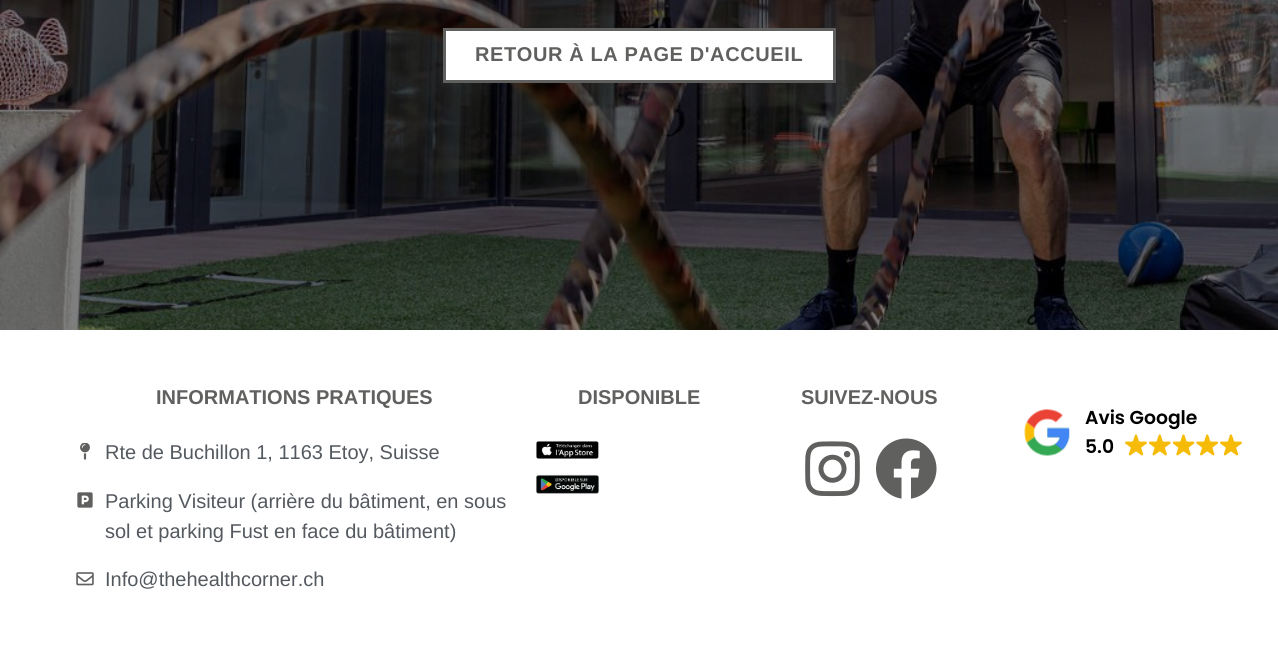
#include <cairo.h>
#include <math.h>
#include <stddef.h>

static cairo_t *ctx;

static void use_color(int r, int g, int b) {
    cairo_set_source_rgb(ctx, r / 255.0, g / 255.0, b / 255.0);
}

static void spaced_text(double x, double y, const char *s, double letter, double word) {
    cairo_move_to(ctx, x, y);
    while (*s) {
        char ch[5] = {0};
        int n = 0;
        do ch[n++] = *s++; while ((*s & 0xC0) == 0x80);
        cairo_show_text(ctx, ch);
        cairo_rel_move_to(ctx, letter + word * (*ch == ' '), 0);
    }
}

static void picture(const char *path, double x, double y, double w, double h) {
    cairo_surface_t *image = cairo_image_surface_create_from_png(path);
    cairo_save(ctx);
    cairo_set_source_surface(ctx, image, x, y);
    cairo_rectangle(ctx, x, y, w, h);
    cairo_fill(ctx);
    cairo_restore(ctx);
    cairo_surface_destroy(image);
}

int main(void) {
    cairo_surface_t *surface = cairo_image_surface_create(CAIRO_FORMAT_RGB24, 1278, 656);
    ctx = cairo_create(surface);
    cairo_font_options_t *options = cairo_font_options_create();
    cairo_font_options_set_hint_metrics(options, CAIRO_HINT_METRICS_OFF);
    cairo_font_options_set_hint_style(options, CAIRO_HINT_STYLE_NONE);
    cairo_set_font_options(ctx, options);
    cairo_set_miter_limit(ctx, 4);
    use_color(255, 255, 255);
    cairo_paint(ctx);
    picture("img1.png", 0, 0, 1278, 330);
    use_color(255, 255, 255);
    cairo_rectangle(ctx, 444.5, 29.5, 390, 52);
    cairo_fill_preserve(ctx);
    use_color(96, 96, 95);
    cairo_set_line_width(ctx, 3);
    cairo_stroke(ctx);
    cairo_select_font_face(ctx, "Liberation Sans", CAIRO_FONT_SLANT_NORMAL, CAIRO_FONT_WEIGHT_BOLD);
    cairo_set_font_size(ctx, 20);
    spaced_text(475, 61, "RETOUR À LA PAGE D'ACCUEIL", 0.6, 0);
    cairo_move_to(ctx, 156, 404);
    cairo_show_text(ctx, "INFORMATIONS PRATIQUES");
    picture("img2.png", 80, 443, 10, 17);
    cairo_select_font_face(ctx, "Liberation Sans", CAIRO_FONT_SLANT_NORMAL, CAIRO_FONT_WEIGHT_NORMAL);
    use_color(84, 89, 95);
    cairo_move_to(ctx, 105, 459);
    cairo_show_text(ctx, "Rte de Buchillon 1, 1163 Etoy, Suisse");
    picture("img3.png", 77, 492, 16, 16);
    cairo_move_to(ctx, 105, 508);
    cairo_show_text(ctx, "Parking Visiteur (arrière du bâtiment, en sous");
    cairo_move_to(ctx, 105, 538);
    cairo_show_text(ctx, "sol et parking Fust en face du bâtiment)");
    picture("img4.png", 76, 572, 18, 14);
    cairo_move_to(ctx, 105, 586);
    cairo_show_text(ctx, "Info@thehealthcorner.ch");
    cairo_select_font_face(ctx, "Liberation Sans", CAIRO_FONT_SLANT_NORMAL, CAIRO_FONT_WEIGHT_BOLD);
    use_color(96, 96, 95);
    cairo_move_to(ctx, 578, 404);
    cairo_show_text(ctx, "DISPONIBLE");
    picture("img5.png", 536, 441, 63, 18);
    picture("img6.png", 536, 474, 63, 20);
    cairo_move_to(ctx, 801, 404);
    cairo_show_text(ctx, "SUIVEZ-NOUS");
    picture("img7.png", 805, 441, 55, 56);
    picture("img8.png", 876, 438, 61, 61);
    picture("img9.png", 1024, 409, 46, 47);
    cairo_select_font_face(ctx, "Poppins SemiBold", CAIRO_FONT_SLANT_NORMAL, CAIRO_FONT_WEIGHT_NORMAL);
    cairo_set_font_size(ctx, 18.75);
    use_color(0, 0, 0);
    cairo_move_to(ctx, 1085, 424);
    cairo_show_text(ctx, "Avis Google");
    cairo_move_to(ctx, 1085, 453);
    cairo_show_text(ctx, "5.0");
    picture("img10.png", 1125, 434, 22, 22);
    picture("img11.png", 1149, 434, 22, 22);
    picture("img12.png", 1173, 434, 22, 22);
    picture("img13.png", 1196, 434, 23, 22);
    picture("img10.png", 1220, 434, 22, 22);
    cairo_surface_write_to_png(surface, "result.png");
    cairo_font_options_destroy(options);
    cairo_destroy(ctx);
    cairo_surface_destroy(surface);
    return 0;
}
